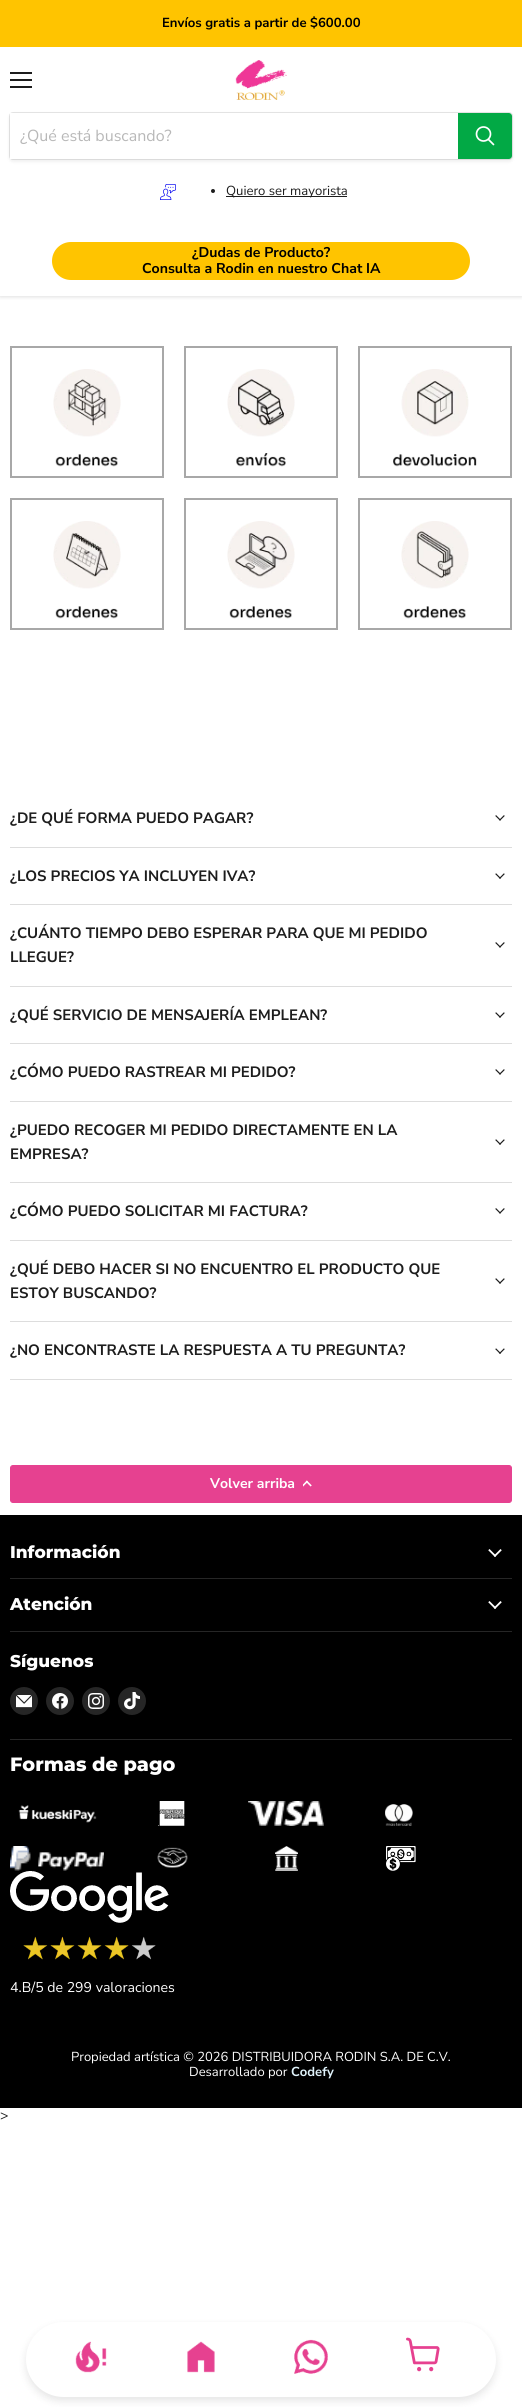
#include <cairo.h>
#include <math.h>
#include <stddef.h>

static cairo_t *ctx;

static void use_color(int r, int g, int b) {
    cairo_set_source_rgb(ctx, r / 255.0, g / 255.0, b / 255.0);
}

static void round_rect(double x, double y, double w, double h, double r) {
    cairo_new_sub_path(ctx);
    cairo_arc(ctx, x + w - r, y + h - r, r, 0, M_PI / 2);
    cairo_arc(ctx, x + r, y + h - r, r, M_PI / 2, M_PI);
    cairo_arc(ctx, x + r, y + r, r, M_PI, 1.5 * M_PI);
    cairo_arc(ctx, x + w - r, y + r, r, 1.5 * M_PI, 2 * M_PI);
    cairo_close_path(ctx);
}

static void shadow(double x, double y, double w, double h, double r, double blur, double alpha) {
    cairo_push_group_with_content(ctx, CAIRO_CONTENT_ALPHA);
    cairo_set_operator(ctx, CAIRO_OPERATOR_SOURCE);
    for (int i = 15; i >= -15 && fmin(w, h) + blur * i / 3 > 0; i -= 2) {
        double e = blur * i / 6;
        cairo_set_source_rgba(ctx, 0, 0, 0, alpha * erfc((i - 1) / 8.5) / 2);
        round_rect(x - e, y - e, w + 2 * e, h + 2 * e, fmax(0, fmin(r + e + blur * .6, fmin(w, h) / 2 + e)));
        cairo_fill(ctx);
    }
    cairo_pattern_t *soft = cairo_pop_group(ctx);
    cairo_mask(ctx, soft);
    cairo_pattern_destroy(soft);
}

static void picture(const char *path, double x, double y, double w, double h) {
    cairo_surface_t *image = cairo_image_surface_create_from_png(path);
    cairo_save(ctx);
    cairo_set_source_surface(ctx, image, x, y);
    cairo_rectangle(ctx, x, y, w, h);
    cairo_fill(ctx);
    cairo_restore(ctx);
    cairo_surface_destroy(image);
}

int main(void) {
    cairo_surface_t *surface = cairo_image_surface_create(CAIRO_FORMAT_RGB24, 522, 2407);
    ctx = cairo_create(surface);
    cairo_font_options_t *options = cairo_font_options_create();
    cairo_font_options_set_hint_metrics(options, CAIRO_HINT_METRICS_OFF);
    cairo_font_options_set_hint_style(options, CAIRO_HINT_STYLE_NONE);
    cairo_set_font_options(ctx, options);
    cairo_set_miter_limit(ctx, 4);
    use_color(255, 255, 255);
    cairo_paint(ctx);
    cairo_save(ctx);
    cairo_rectangle(ctx, 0, 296, 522, 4);
    cairo_clip(ctx);
    use_color(128, 128, 128);
    shadow(0, 48, 522, 249, 0, 2, 0.25);
    cairo_restore(ctx);
    use_color(255, 196, 0);
    cairo_rectangle(ctx, 0, 0, 522, 47);
    cairo_fill(ctx);
    cairo_select_font_face(ctx, "Nunito Sans", CAIRO_FONT_SLANT_NORMAL, CAIRO_FONT_WEIGHT_BOLD);
    cairo_set_font_size(ctx, 13.1);
    use_color(0, 0, 0);
    cairo_move_to(ctx, 162, 27);
    cairo_show_text(ctx, "Envíos gratis a partir de $600.00");
    use_color(29, 29, 29);
    cairo_rectangle(ctx, 10, 72, 22, 2);
    cairo_fill(ctx);
    cairo_rectangle(ctx, 10, 79, 22, 2);
    cairo_fill(ctx);
    cairo_rectangle(ctx, 10, 86, 22, 2);
    cairo_fill(ctx);
    picture("img1.png", 235, 60, 52, 40);
    use_color(128, 128, 128);
    shadow(9, 114, 504, 48, 4, 1.5, 0.11);
    round_rect(9.5, 112.5, 503, 47, 3.5);
    cairo_set_source_rgba(ctx, 0.502, 0.502, 0.502, 0.2);
    cairo_set_line_width(ctx, 1);
    cairo_stroke(ctx);
    use_color(255, 255, 255);
    cairo_rectangle(ctx, 10, 113, 448, 46);
    cairo_fill(ctx);
    cairo_select_font_face(ctx, "Nunito Sans", CAIRO_FONT_SLANT_NORMAL, CAIRO_FONT_WEIGHT_NORMAL);
    cairo_set_font_size(ctx, 16);
    use_color(184, 184, 184);
    cairo_move_to(ctx, 20, 141);
    cairo_show_text(ctx, "¿Qué está buscando?");
    use_color(2, 169, 69);
    cairo_new_path(ctx);
    cairo_move_to(ctx, 458, 113);
    cairo_line_to(ctx, 509, 113);
    cairo_curve_to(ctx, 510.5, 113, 512, 114.5, 512, 116);
    cairo_line_to(ctx, 512, 156);
    cairo_curve_to(ctx, 512, 157.5, 510.5, 159, 509, 159);
    cairo_line_to(ctx, 458, 159);
    cairo_close_path(ctx);
    cairo_fill(ctx);
    cairo_new_path(ctx);
    cairo_move_to(ctx, 493.5, 144.5);
    cairo_line_to(ctx, 488.5, 139.5);
    use_color(255, 255, 255);
    cairo_set_line_width(ctx, 1.7);
    cairo_set_line_cap(ctx, CAIRO_LINE_CAP_ROUND);
    cairo_stroke(ctx);
    cairo_arc(ctx, 483.5, 134, 7, 0, 2 * M_PI);
    cairo_set_line_cap(ctx, CAIRO_LINE_CAP_BUTT);
    cairo_stroke(ctx);
    picture("img2.png", 160, 184, 16, 16);
    use_color(29, 29, 29);
    cairo_arc(ctx, 213, 191, 2, 0, 2 * M_PI);
    cairo_fill(ctx);
    cairo_rectangle(ctx, 226, 196, 121, 1);
    cairo_fill(ctx);
    cairo_set_font_size(ctx, 13.1);
    cairo_move_to(ctx, 226, 195);
    cairo_show_text(ctx, "Quiero ser mayorista");
    use_color(255, 196, 0);
    round_rect(52, 242, 418, 38, 19);
    cairo_fill(ctx);
    cairo_select_font_face(ctx, "Nunito Sans", CAIRO_FONT_SLANT_NORMAL, CAIRO_FONT_WEIGHT_BOLD);
    cairo_set_font_size(ctx, 14.1);
    use_color(0, 0, 0);
    cairo_move_to(ctx, 192, 257);
    cairo_show_text(ctx, "¿Dudas de Producto?");
    cairo_move_to(ctx, 142, 273);
    cairo_show_text(ctx, "Consulta a Rodin en nuestro Chat IA");
    cairo_rectangle(ctx, 11, 347, 152, 130);
    use_color(168, 168, 168);
    cairo_set_line_width(ctx, 2);
    cairo_stroke(ctx);
    picture("img3.png", 53, 369, 68, 98);
    cairo_rectangle(ctx, 185, 347, 152, 130);
    cairo_stroke(ctx);
    picture("img4.png", 227, 369, 68, 98);
    cairo_rectangle(ctx, 359, 347, 152, 130);
    cairo_stroke(ctx);
    picture("img5.png", 393, 369, 84, 98);
    cairo_rectangle(ctx, 11, 499, 152, 130);
    cairo_stroke(ctx);
    picture("img6.png", 53, 521, 68, 98);
    cairo_rectangle(ctx, 185, 499, 152, 130);
    cairo_stroke(ctx);
    picture("img7.png", 227, 521, 68, 98);
    cairo_rectangle(ctx, 359, 499, 152, 130);
    cairo_stroke(ctx);
    picture("img8.png", 401, 521, 68, 98);
    use_color(221, 221, 221);
    cairo_rectangle(ctx, 10, 847, 502, 1);
    cairo_fill(ctx);
    cairo_set_font_size(ctx, 15);
    use_color(29, 29, 29);
    cairo_move_to(ctx, 10, 823);
    cairo_show_text(ctx, "¿DE QUÉ FORMA PUEDO PAGAR?");
    picture("img9.png", 495, 815, 10, 6);
    use_color(221, 221, 221);
    cairo_rectangle(ctx, 10, 904, 502, 1);
    cairo_fill(ctx);
    use_color(29, 29, 29);
    cairo_move_to(ctx, 10, 881);
    cairo_show_text(ctx, "¿LOS PRECIOS YA INCLUYEN IVA?");
    picture("img10.png", 495, 873, 10, 6);
    use_color(221, 221, 221);
    cairo_rectangle(ctx, 10, 986, 502, 1);
    cairo_fill(ctx);
    use_color(29, 29, 29);
    cairo_move_to(ctx, 10, 938);
    cairo_show_text(ctx, "¿CUÁNTO TIEMPO DEBO ESPERAR PARA QUE MI PEDIDO");
    cairo_move_to(ctx, 10, 962);
    cairo_show_text(ctx, "LLEGUE?");
    picture("img11.png", 495, 942, 10, 6);
    use_color(221, 221, 221);
    cairo_rectangle(ctx, 10, 1043, 502, 1);
    cairo_fill(ctx);
    use_color(29, 29, 29);
    cairo_move_to(ctx, 10, 1020);
    cairo_show_text(ctx, "¿QUÉ SERVICIO DE MENSAJERÍA EMPLEAN?");
    picture("img12.png", 495, 1012, 10, 6);
    use_color(221, 221, 221);
    cairo_rectangle(ctx, 10, 1101, 502, 1);
    cairo_fill(ctx);
    use_color(29, 29, 29);
    cairo_move_to(ctx, 10, 1077);
    cairo_show_text(ctx, "¿CÓMO PUEDO RASTREAR MI PEDIDO?");
    picture("img13.png", 495, 1069, 10, 6);
    use_color(221, 221, 221);
    cairo_rectangle(ctx, 10, 1182, 502, 1);
    cairo_fill(ctx);
    use_color(29, 29, 29);
    cairo_move_to(ctx, 10, 1135);
    cairo_show_text(ctx, "¿PUEDO RECOGER MI PEDIDO DIRECTAMENTE EN LA");
    cairo_move_to(ctx, 10, 1159);
    cairo_show_text(ctx, "EMPRESA?");
    picture("img14.png", 495, 1139, 10, 6);
    use_color(221, 221, 221);
    cairo_rectangle(ctx, 10, 1240, 502, 1);
    cairo_fill(ctx);
    use_color(29, 29, 29);
    cairo_move_to(ctx, 10, 1216);
    cairo_show_text(ctx, "¿CÓMO PUEDO SOLICITAR MI FACTURA?");
    picture("img9.png", 495, 1208, 10, 6);
    use_color(221, 221, 221);
    cairo_rectangle(ctx, 10, 1321, 502, 1);
    cairo_fill(ctx);
    use_color(29, 29, 29);
    cairo_move_to(ctx, 10, 1274);
    cairo_show_text(ctx, "¿QUÉ DEBO HACER SI NO ENCUENTRO EL PRODUCTO QUE");
    cairo_move_to(ctx, 10, 1298);
    cairo_show_text(ctx, "ESTOY BUSCANDO?");
    picture("img15.png", 495, 1278, 10, 6);
    use_color(221, 221, 221);
    cairo_rectangle(ctx, 10, 1379, 502, 1);
    cairo_fill(ctx);
    use_color(29, 29, 29);
    cairo_move_to(ctx, 10, 1355);
    cairo_show_text(ctx, "¿NO ENCONTRASTE LA RESPUESTA A TU PREGUNTA?");
    picture("img16.png", 495, 1348, 10, 6);
    use_color(230, 65, 144);
    round_rect(10.5, 1465.5, 501, 37, 2.5);
    cairo_fill_preserve(ctx);
    cairo_set_line_width(ctx, 1);
    cairo_stroke(ctx);
    cairo_set_font_size(ctx, 14);
    use_color(255, 255, 255);
    cairo_move_to(ctx, 210, 1488);
    cairo_show_text(ctx, "Volver arriba");
    picture("img17.png", 303, 1480, 9, 7);
    use_color(0, 0, 0);
    cairo_rectangle(ctx, 0, 1515, 522, 593);
    cairo_fill(ctx);
    use_color(38, 38, 38);
    cairo_rectangle(ctx, 10, 1578, 502, 1);
    cairo_fill(ctx);
    cairo_select_font_face(ctx, "Montserrat ExtraBold", CAIRO_FONT_SLANT_NORMAL, CAIRO_FONT_WEIGHT_NORMAL);
    cairo_set_font_size(ctx, 17);
    use_color(255, 255, 255);
    cairo_move_to(ctx, 10, 1558);
    cairo_show_text(ctx, "Información");
    picture("img18.png", 488, 1549, 14, 8);
    use_color(38, 38, 38);
    cairo_rectangle(ctx, 10, 1631, 502, 1);
    cairo_fill(ctx);
    use_color(255, 255, 255);
    cairo_move_to(ctx, 10, 1610);
    cairo_show_text(ctx, "Atención");
    picture("img18.png", 488, 1601, 14, 8);
    use_color(38, 38, 38);
    cairo_rectangle(ctx, 10, 1739, 502, 1);
    cairo_fill(ctx);
    use_color(255, 255, 255);
    cairo_move_to(ctx, 10, 1667);
    cairo_show_text(ctx, "Síguenos");
    use_color(38, 38, 38);
    cairo_new_path(ctx);
    cairo_arc(ctx, 24, 1701, 14, 0, 2 * M_PI);
    cairo_fill(ctx);
    picture("img19.png", 16, 1695, 16, 13);
    cairo_arc(ctx, 60, 1701, 14, 0, 2 * M_PI);
    cairo_fill(ctx);
    picture("img20.png", 52, 1693, 16, 16);
    cairo_arc(ctx, 96, 1701, 14, 0, 2 * M_PI);
    cairo_fill(ctx);
    picture("img21.png", 88, 1693, 16, 16);
    cairo_arc(ctx, 132, 1701, 14, 0, 2 * M_PI);
    cairo_fill(ctx);
    picture("img22.png", 124, 1692, 16, 18);
    cairo_set_font_size(ctx, 19.25);
    use_color(255, 255, 255);
    cairo_move_to(ctx, 10, 1771);
    cairo_show_text(ctx, "Formas de pago");
    picture("img23.png", 18, 1805, 79, 18);
    picture("img24.png", 158, 1801, 27, 25);
    picture("img25.png", 248, 1801, 76, 25);
    picture("img26.png", 385, 1804, 28, 22);
    picture("img27.png", 10, 1846, 94, 25);
    picture("img28.png", 157, 1847, 31, 21);
    picture("img29.png", 275, 1846, 23, 25);
    picture("img30.png", 386, 1846, 30, 25);
    picture("img31.png", 10, 1871, 159, 89);
    cairo_select_font_face(ctx, "Nunito Sans", CAIRO_FONT_SLANT_NORMAL, CAIRO_FONT_WEIGHT_NORMAL);
    cairo_set_font_size(ctx, 14.1);
    cairo_move_to(ctx, 10, 1992);
    cairo_show_text(ctx, "4.B/5 de 299 valoraciones");
    cairo_set_font_size(ctx, 13);
    cairo_move_to(ctx, 71, 2061);
    cairo_show_text(ctx, "Propiedad artística © 2026 DISTRIBUIDORA RODIN S.A. DE C.V.");
    cairo_move_to(ctx, 189, 2076);
    cairo_show_text(ctx, "Desarrollado por");
    cairo_select_font_face(ctx, "Nunito Sans", CAIRO_FONT_SLANT_NORMAL, CAIRO_FONT_WEIGHT_BOLD);
    use_color(224, 243, 251);
    cairo_move_to(ctx, 291, 2076);
    cairo_show_text(ctx, "Codefy");
    cairo_select_font_face(ctx, "Nunito Sans", CAIRO_FONT_SLANT_NORMAL, CAIRO_FONT_WEIGHT_NORMAL);
    cairo_set_font_size(ctx, 14.1);
    use_color(29, 29, 29);
    cairo_move_to(ctx, 0, 2120);
    cairo_show_text(ctx, ">");
    use_color(0, 0, 0);
    shadow(26, 2326, 470, 75, 37.5, 4, 0.1);
    use_color(255, 255, 255);
    round_rect(26, 2322, 470, 75, 37.5);
    cairo_fill(ctx);
    picture("img32.png", 75, 2341, 32, 32);
    picture("img33.png", 187, 2341, 28, 32);
    picture("img34.png", 294, 2339, 34, 35);
    picture("img35.png", 406, 2337, 34, 35);
    cairo_surface_write_to_png(surface, "result.png");
    cairo_font_options_destroy(options);
    cairo_destroy(ctx);
    cairo_surface_destroy(surface);
    return 0;
}
